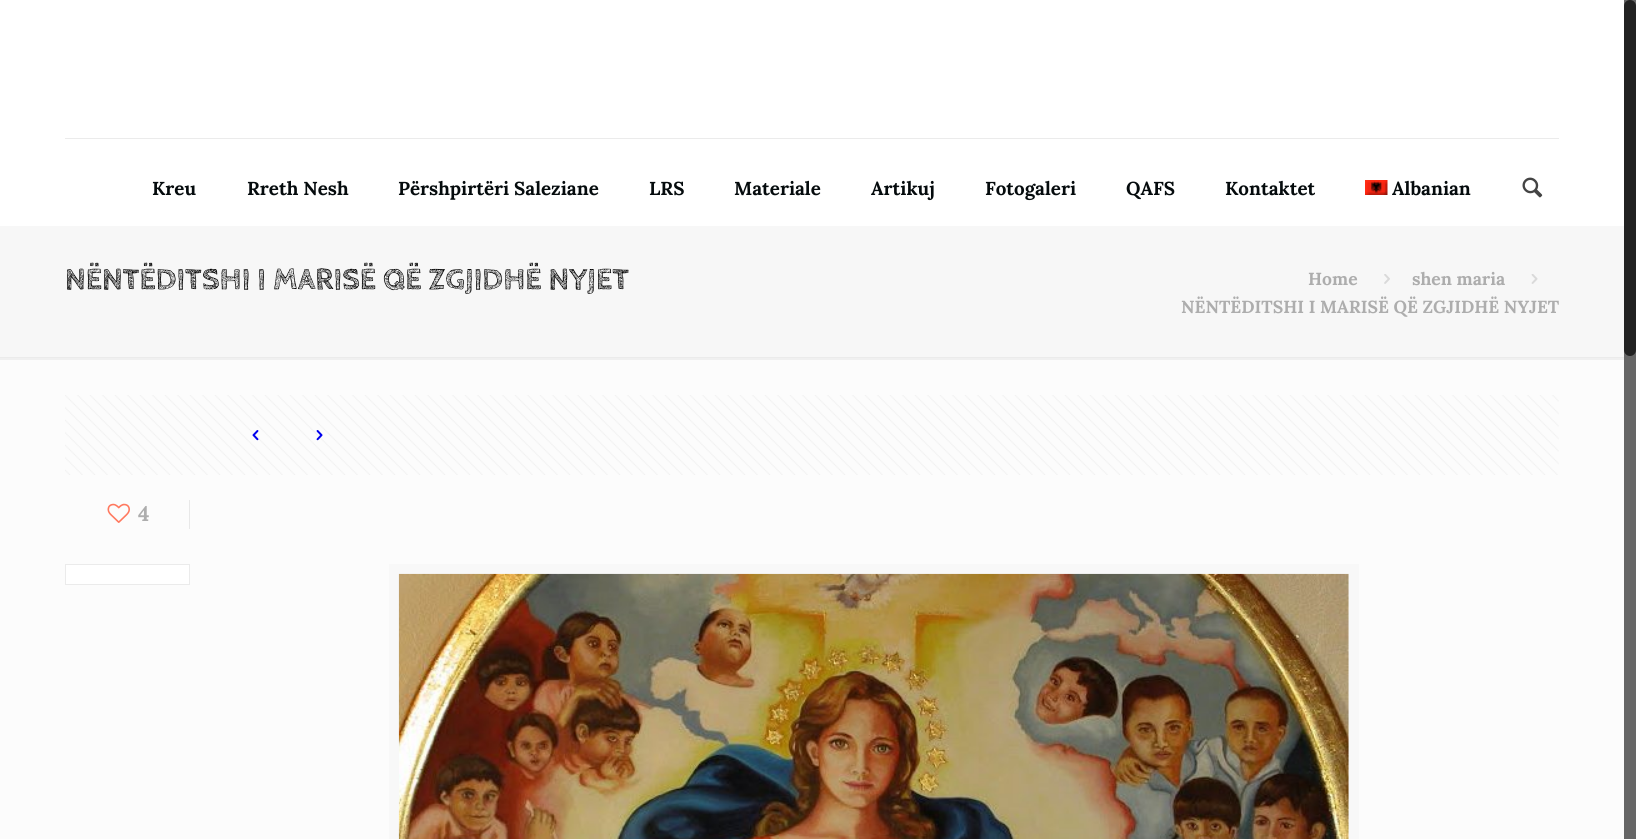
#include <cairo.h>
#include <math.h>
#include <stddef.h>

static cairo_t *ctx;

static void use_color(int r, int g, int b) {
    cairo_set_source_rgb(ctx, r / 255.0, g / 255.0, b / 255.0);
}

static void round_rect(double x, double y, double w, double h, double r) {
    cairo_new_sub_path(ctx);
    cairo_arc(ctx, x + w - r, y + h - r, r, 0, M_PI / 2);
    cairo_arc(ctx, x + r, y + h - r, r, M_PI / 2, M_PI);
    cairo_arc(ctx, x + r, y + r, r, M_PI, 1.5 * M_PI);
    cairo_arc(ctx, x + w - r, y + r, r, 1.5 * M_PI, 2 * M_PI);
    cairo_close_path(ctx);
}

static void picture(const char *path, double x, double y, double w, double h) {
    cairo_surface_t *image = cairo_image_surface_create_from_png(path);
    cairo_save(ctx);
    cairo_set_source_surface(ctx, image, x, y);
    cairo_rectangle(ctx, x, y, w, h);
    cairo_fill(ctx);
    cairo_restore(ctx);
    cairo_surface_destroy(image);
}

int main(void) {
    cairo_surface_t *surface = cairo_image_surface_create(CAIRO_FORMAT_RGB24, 1636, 839);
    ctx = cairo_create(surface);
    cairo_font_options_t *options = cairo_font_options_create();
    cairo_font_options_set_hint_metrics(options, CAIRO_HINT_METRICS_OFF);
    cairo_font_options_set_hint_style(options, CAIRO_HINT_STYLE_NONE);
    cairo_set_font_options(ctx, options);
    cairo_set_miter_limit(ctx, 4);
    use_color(252, 252, 252);
    cairo_paint(ctx);
    use_color(255, 255, 255);
    cairo_rectangle(ctx, 0, 0, 1624, 226);
    cairo_fill(ctx);
    use_color(235, 235, 235);
    cairo_rectangle(ctx, 65, 138, 1494, 1);
    cairo_fill(ctx);
    cairo_select_font_face(ctx, "Lora", CAIRO_FONT_SLANT_NORMAL, CAIRO_FONT_WEIGHT_BOLD);
    cairo_set_font_size(ctx, 18.75);
    use_color(5, 11, 13);
    cairo_move_to(ctx, 152, 195);
    cairo_show_text(ctx, "Kreu");
    cairo_move_to(ctx, 247, 195);
    cairo_show_text(ctx, "Rreth Nesh");
    cairo_move_to(ctx, 398, 195);
    cairo_show_text(ctx, "Përshpirtëri Saleziane");
    cairo_move_to(ctx, 649, 195);
    cairo_show_text(ctx, "LRS");
    cairo_move_to(ctx, 734, 195);
    cairo_show_text(ctx, "Materiale");
    cairo_move_to(ctx, 871, 195);
    cairo_show_text(ctx, "Artikuj");
    cairo_move_to(ctx, 985, 195);
    cairo_show_text(ctx, "Fotogaleri");
    cairo_move_to(ctx, 1126, 195);
    cairo_show_text(ctx, "QAFS");
    cairo_move_to(ctx, 1225, 195);
    cairo_show_text(ctx, "Kontaktet");
    picture("img1.png", 1365, 180, 23, 15);
    cairo_move_to(ctx, 1392, 195);
    cairo_show_text(ctx, "Albanian");
    picture("img2.png", 1522, 177, 21, 21);
    use_color(247, 247, 247);
    cairo_rectangle(ctx, 0, 226, 1624, 132);
    cairo_fill(ctx);
    cairo_select_font_face(ctx, "Cabin Sketch", CAIRO_FONT_SLANT_NORMAL, CAIRO_FONT_WEIGHT_BOLD);
    cairo_set_font_size(ctx, 31.25);
    use_color(0, 0, 0);
    cairo_move_to(ctx, 65, 289);
    cairo_show_text(ctx, "NËNTËDITSHI I MARISË QË ZGJIDHË NYJET");
    cairo_select_font_face(ctx, "Lora", CAIRO_FONT_SLANT_NORMAL, CAIRO_FONT_WEIGHT_BOLD);
    cairo_set_font_size(ctx, 17.5);
    use_color(173, 173, 173);
    cairo_move_to(ctx, 1308, 285);
    cairo_show_text(ctx, "Home");
    picture("img3.png", 1384, 274, 6, 10);
    cairo_move_to(ctx, 1412, 285);
    cairo_show_text(ctx, "shen maria");
    picture("img4.png", 1531, 274, 7, 10);
    cairo_move_to(ctx, 1181, 313);
    cairo_show_text(ctx, "NËNTËDITSHI I MARISË QË ZGJIDHË NYJET");
    cairo_set_source_rgba(ctx, 0, 0, 0, 0.05);
    cairo_rectangle(ctx, 0, 357, 1624, 3);
    cairo_fill(ctx);
    picture("img5.png", 65, 395, 1494, 80);
    picture("img6.png", 252, 430, 7, 11);
    picture("img7.png", 316, 430, 7, 11);
    picture("img8.png", 107, 503, 23, 20);
    cairo_set_font_size(ctx, 21);
    use_color(173, 173, 173);
    cairo_move_to(ctx, 138, 521);
    cairo_show_text(ctx, "4");
    use_color(232, 232, 232);
    cairo_rectangle(ctx, 189, 500, 1, 29);
    cairo_fill(ctx);
    use_color(255, 255, 255);
    cairo_rectangle(ctx, 65.5, 564.5, 124, 20);
    cairo_fill_preserve(ctx);
    use_color(235, 235, 235);
    cairo_set_line_width(ctx, 1);
    cairo_stroke(ctx);
    cairo_rectangle(ctx, 394, 569, 960, 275);
    use_color(248, 248, 248);
    cairo_set_line_width(ctx, 10);
    cairo_stroke(ctx);
    picture("img9.png", 398, 573, 951, 266);
    use_color(102, 102, 102);
    cairo_rectangle(ctx, 1624, 0, 12, 839);
    cairo_fill(ctx);
    use_color(34, 34, 34);
    round_rect(1624, 0, 12, 356, 6);
    cairo_fill(ctx);
    cairo_surface_write_to_png(surface, "result.png");
    cairo_font_options_destroy(options);
    cairo_destroy(ctx);
    cairo_surface_destroy(surface);
    return 0;
}
